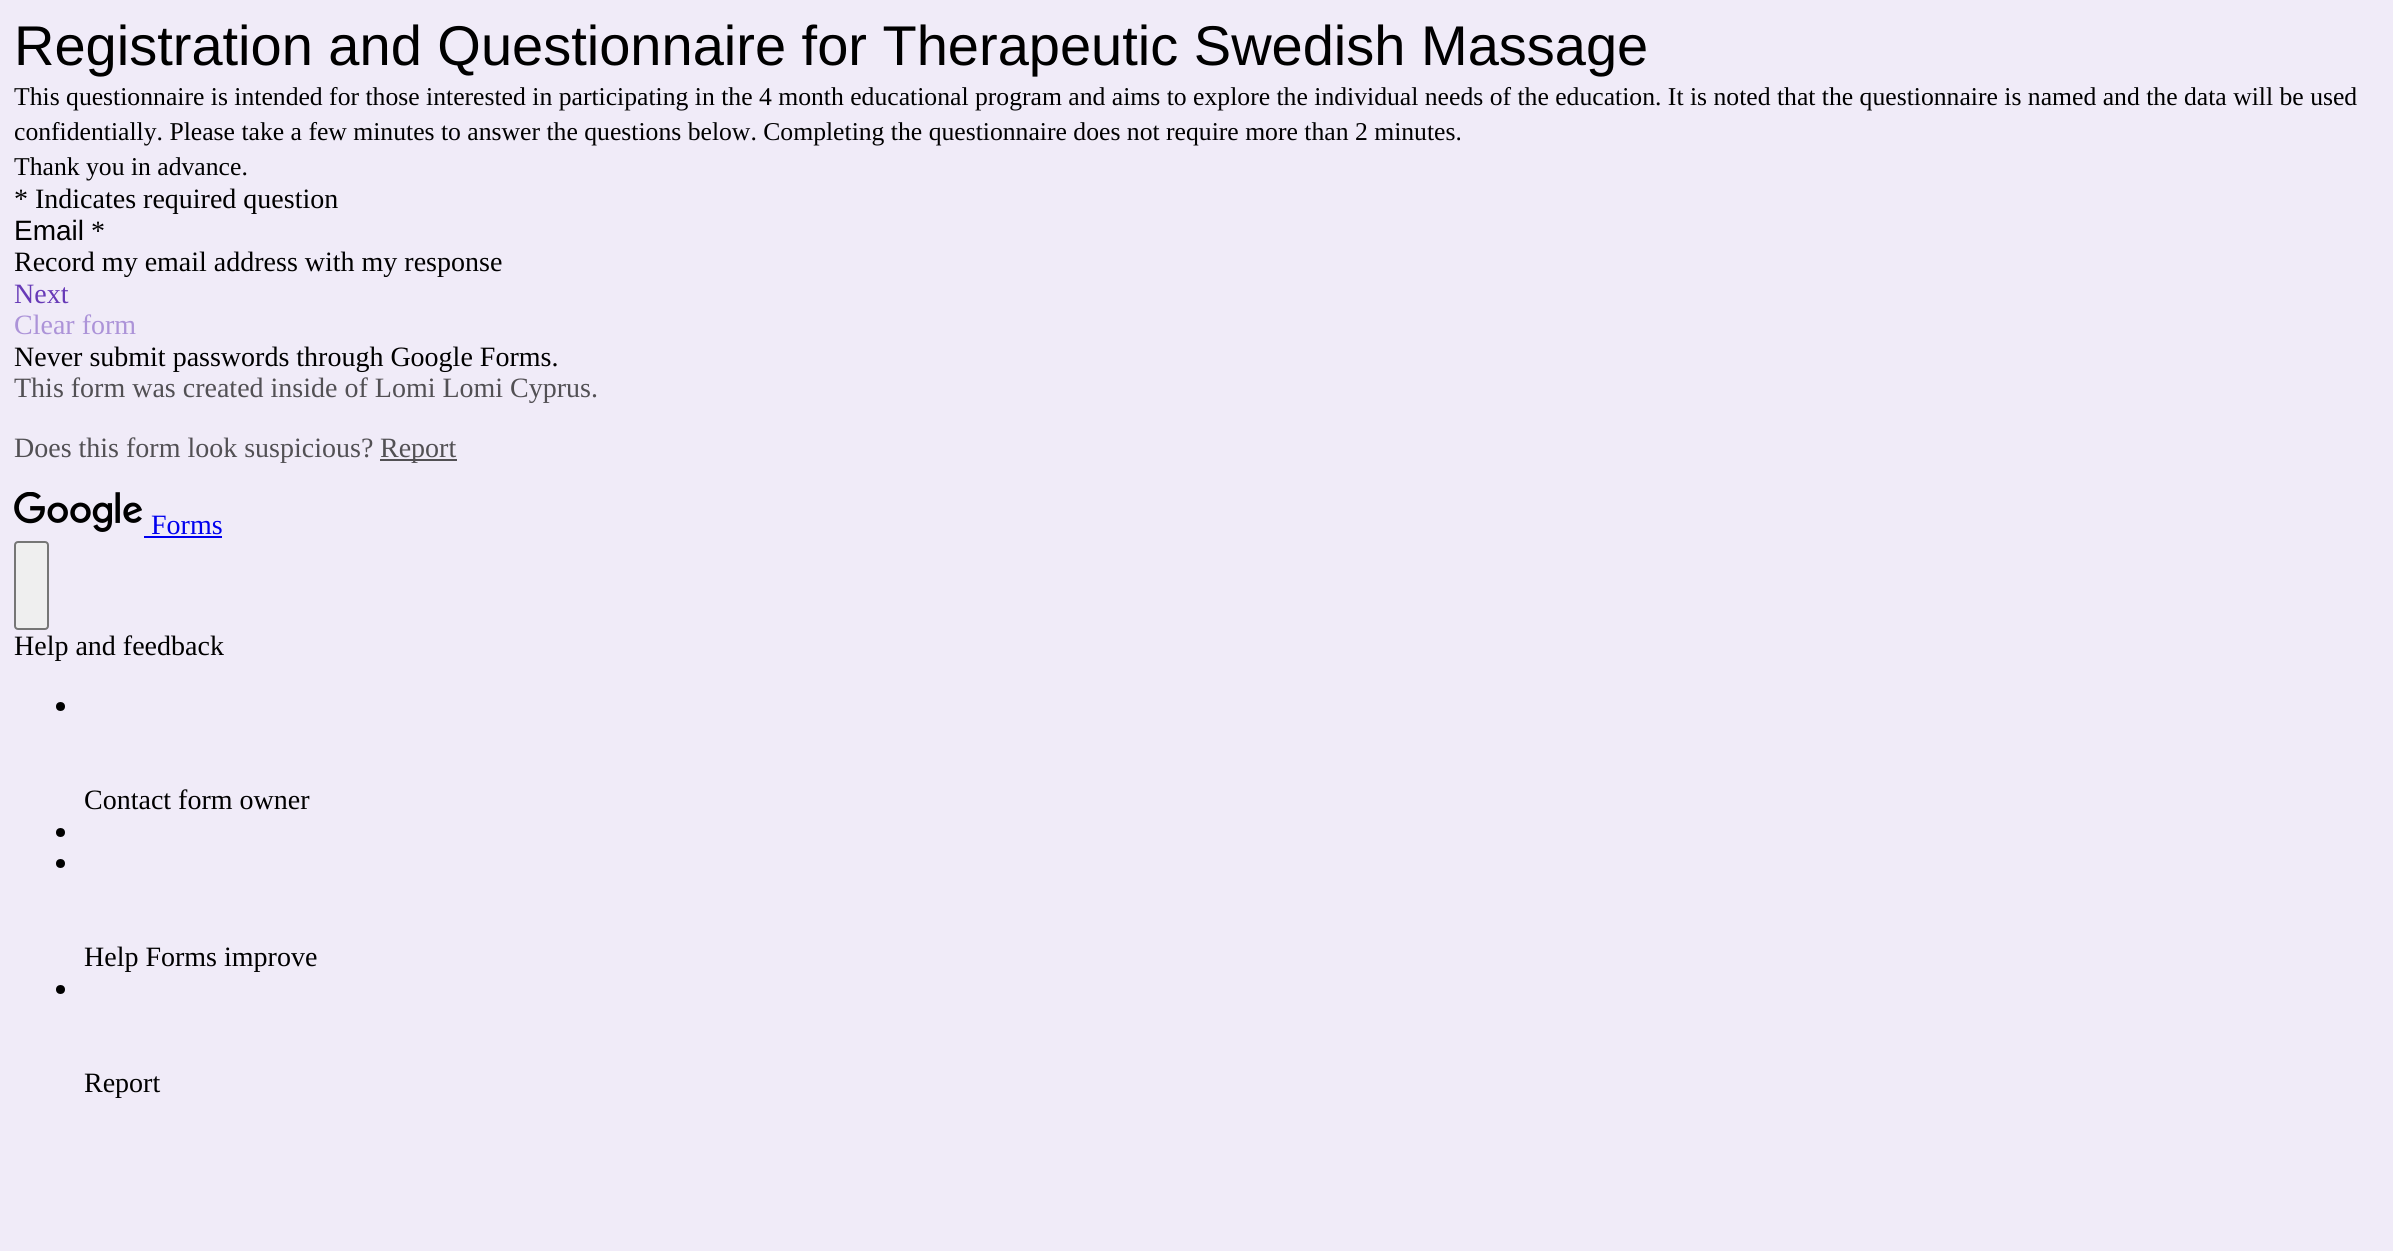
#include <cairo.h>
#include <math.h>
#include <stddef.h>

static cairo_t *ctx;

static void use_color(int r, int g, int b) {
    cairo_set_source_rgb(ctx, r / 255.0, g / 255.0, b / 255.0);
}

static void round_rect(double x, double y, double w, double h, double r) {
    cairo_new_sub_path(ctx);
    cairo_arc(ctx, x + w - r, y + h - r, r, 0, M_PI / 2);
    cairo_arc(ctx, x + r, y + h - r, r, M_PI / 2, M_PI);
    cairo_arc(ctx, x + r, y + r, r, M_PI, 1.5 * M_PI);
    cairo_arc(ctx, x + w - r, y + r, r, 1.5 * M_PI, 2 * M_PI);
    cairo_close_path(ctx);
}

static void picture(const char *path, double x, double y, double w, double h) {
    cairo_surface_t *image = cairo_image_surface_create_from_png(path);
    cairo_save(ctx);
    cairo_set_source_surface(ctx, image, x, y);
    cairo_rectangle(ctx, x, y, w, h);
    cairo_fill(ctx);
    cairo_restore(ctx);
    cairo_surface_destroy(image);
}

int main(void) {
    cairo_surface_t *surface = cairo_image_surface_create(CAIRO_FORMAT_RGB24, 2393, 1251);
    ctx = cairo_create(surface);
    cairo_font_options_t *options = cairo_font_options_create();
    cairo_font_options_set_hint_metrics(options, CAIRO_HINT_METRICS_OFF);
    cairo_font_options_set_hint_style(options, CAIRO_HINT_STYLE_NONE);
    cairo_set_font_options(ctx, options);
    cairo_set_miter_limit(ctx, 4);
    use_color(240, 235, 248);
    cairo_paint(ctx);
    cairo_select_font_face(ctx, "Liberation Sans", CAIRO_FONT_SLANT_NORMAL, CAIRO_FONT_WEIGHT_NORMAL);
    cairo_set_font_size(ctx, 56);
    use_color(0, 0, 0);
    cairo_move_to(ctx, 14, 65);
    cairo_show_text(ctx, "Registration and Questionnaire for Therapeutic Swedish Massage");
    cairo_select_font_face(ctx, "Liberation Serif", CAIRO_FONT_SLANT_NORMAL, CAIRO_FONT_WEIGHT_NORMAL);
    cairo_set_font_size(ctx, 25.67);
    cairo_move_to(ctx, 14, 105);
    cairo_show_text(ctx, "This questionnaire is intended for those interested in participating in the 4 month educational program and aims to explore the individual needs of the education. It is noted that the questionnaire is named and the data will be used");
    cairo_move_to(ctx, 14, 140);
    cairo_show_text(ctx, "confidentially. Please take a few minutes to answer the questions below. Completing the questionnaire does not require more than 2 minutes.");
    cairo_move_to(ctx, 14, 175);
    cairo_show_text(ctx, "Thank you in advance.");
    cairo_set_font_size(ctx, 28);
    cairo_move_to(ctx, 14, 208);
    cairo_show_text(ctx, "* Indicates required question");
    cairo_select_font_face(ctx, "Liberation Sans", CAIRO_FONT_SLANT_NORMAL, CAIRO_FONT_WEIGHT_NORMAL);
    cairo_move_to(ctx, 14, 240);
    cairo_show_text(ctx, "Email");
    cairo_select_font_face(ctx, "Liberation Serif", CAIRO_FONT_SLANT_NORMAL, CAIRO_FONT_WEIGHT_NORMAL);
    cairo_move_to(ctx, 91, 240);
    cairo_show_text(ctx, "*");
    cairo_move_to(ctx, 14, 271);
    cairo_show_text(ctx, "Record my email address with my response");
    use_color(103, 58, 183);
    cairo_move_to(ctx, 14, 303);
    cairo_show_text(ctx, "Next");
    use_color(172, 147, 216);
    cairo_move_to(ctx, 14, 334);
    cairo_show_text(ctx, "Clear form");
    use_color(0, 0, 0);
    cairo_move_to(ctx, 14, 366);
    cairo_show_text(ctx, "Never submit passwords through Google Forms.");
    use_color(82, 80, 84);
    cairo_move_to(ctx, 14, 397);
    cairo_show_text(ctx, "This form was created inside of Lomi Lomi Cyprus.");
    cairo_move_to(ctx, 14, 457);
    cairo_show_text(ctx, "Does this form look suspicious?");
    cairo_rectangle(ctx, 380, 459, 77, 2);
    cairo_fill(ctx);
    cairo_move_to(ctx, 380, 457);
    cairo_show_text(ctx, "Report");
    picture("img1.png", 14, 492, 128, 40);
    use_color(0, 0, 238);
    cairo_move_to(ctx, 151, 534);
    cairo_show_text(ctx, "Forms");
    cairo_rectangle(ctx, 144, 536, 78, 2);
    cairo_fill(ctx);
    use_color(239, 239, 239);
    round_rect(15, 542, 33, 87, 3);
    cairo_fill_preserve(ctx);
    use_color(118, 118, 118);
    cairo_stroke(ctx);
    use_color(0, 0, 0);
    cairo_move_to(ctx, 14, 655);
    cairo_show_text(ctx, "Help and feedback");
    cairo_new_path(ctx);
    cairo_arc(ctx, 60.5, 706.5, 4.5, 0, 2 * M_PI);
    cairo_fill(ctx);
    cairo_move_to(ctx, 84, 809);
    cairo_show_text(ctx, "Contact form owner");
    cairo_new_path(ctx);
    cairo_arc(ctx, 60.5, 832.5, 4.5, 0, 2 * M_PI);
    cairo_fill(ctx);
    cairo_arc(ctx, 60.5, 863.5, 4.5, 0, 2 * M_PI);
    cairo_fill(ctx);
    cairo_move_to(ctx, 84, 966);
    cairo_show_text(ctx, "Help Forms improve");
    cairo_new_path(ctx);
    cairo_arc(ctx, 60.5, 989.5, 4.5, 0, 2 * M_PI);
    cairo_fill(ctx);
    cairo_move_to(ctx, 84, 1092);
    cairo_show_text(ctx, "Report");
    cairo_surface_write_to_png(surface, "result.png");
    cairo_font_options_destroy(options);
    cairo_destroy(ctx);
    cairo_surface_destroy(surface);
    return 0;
}
